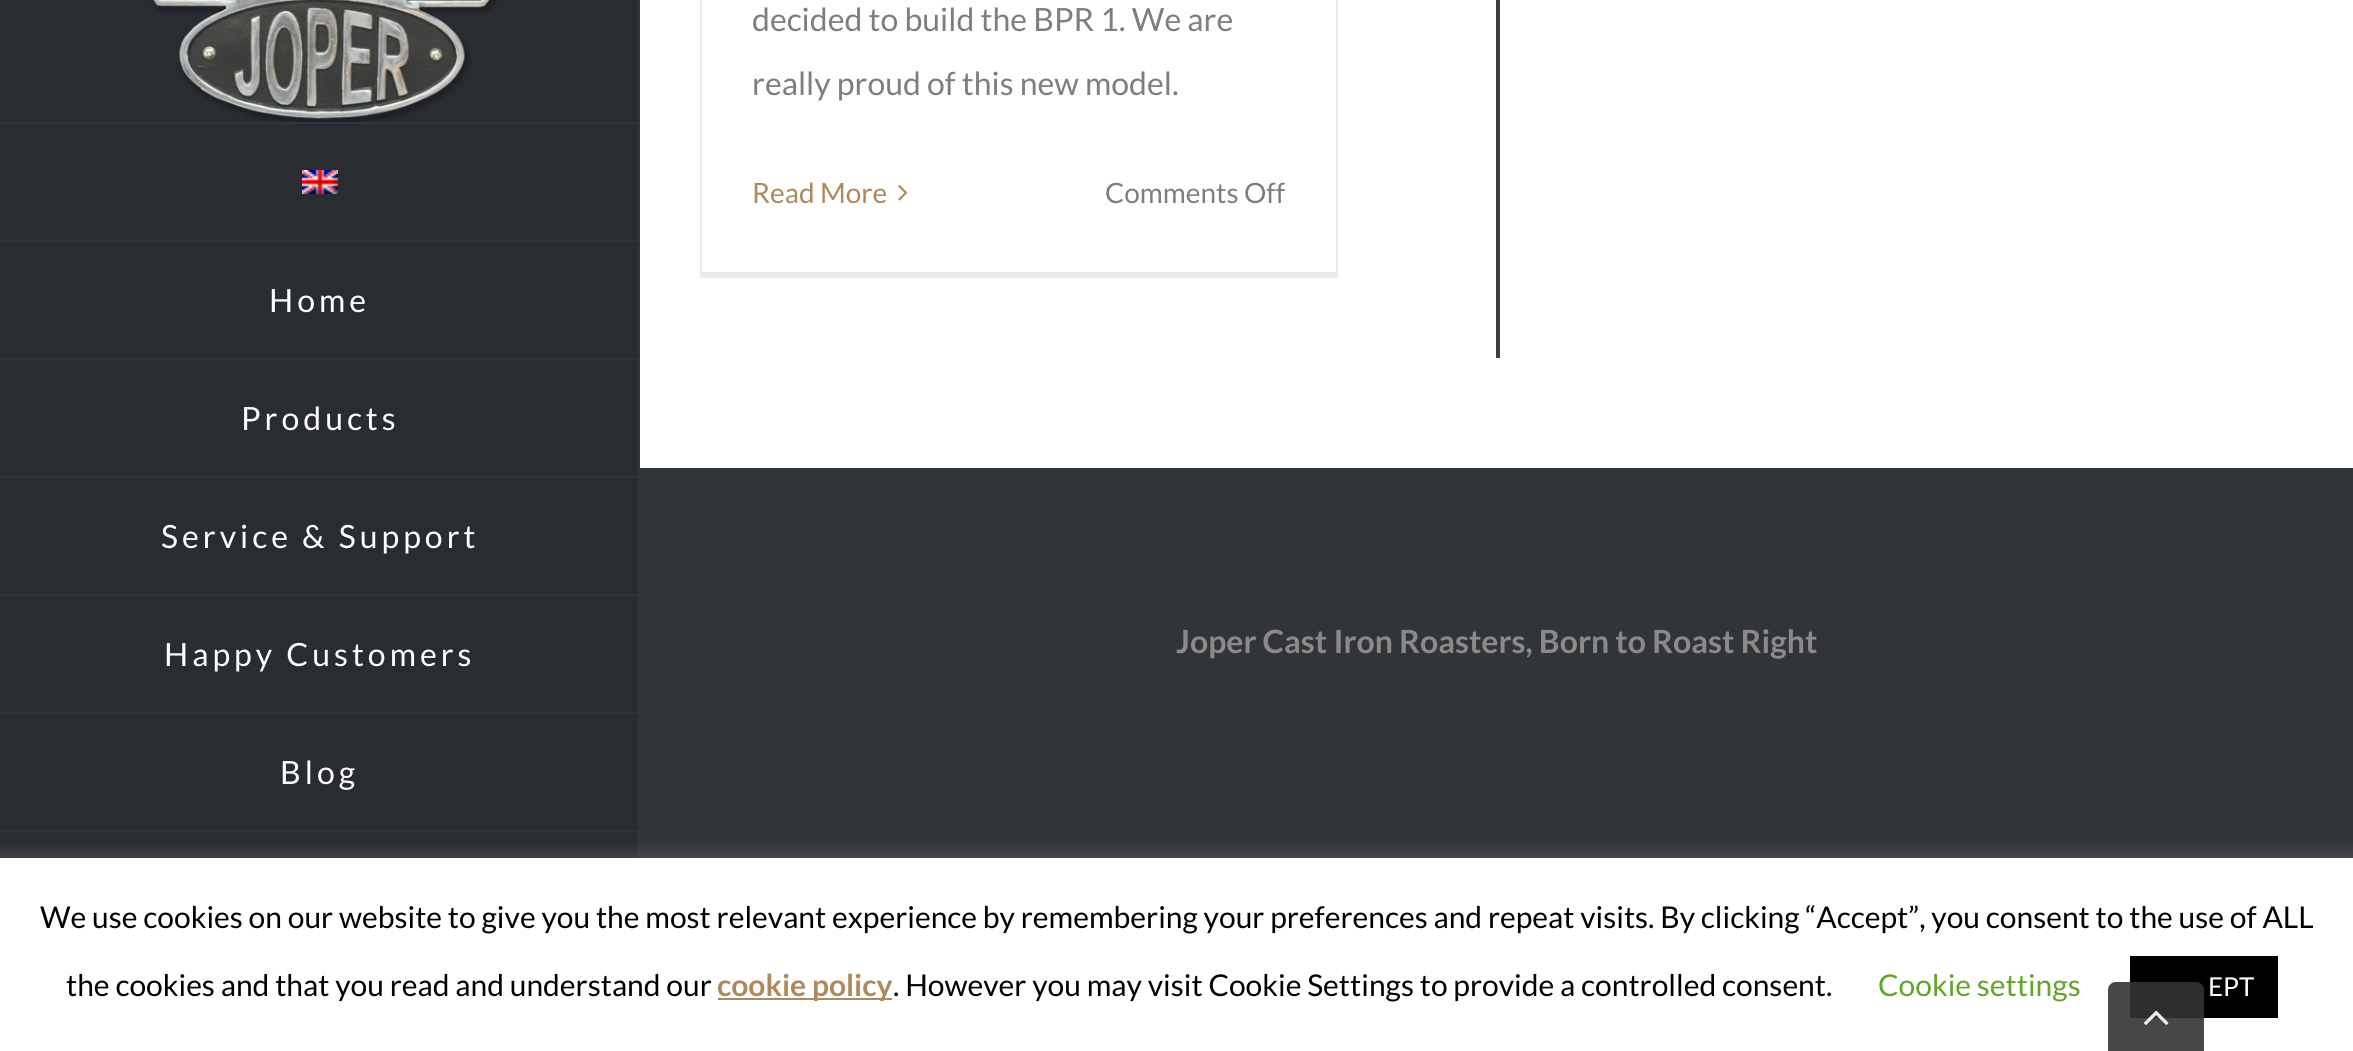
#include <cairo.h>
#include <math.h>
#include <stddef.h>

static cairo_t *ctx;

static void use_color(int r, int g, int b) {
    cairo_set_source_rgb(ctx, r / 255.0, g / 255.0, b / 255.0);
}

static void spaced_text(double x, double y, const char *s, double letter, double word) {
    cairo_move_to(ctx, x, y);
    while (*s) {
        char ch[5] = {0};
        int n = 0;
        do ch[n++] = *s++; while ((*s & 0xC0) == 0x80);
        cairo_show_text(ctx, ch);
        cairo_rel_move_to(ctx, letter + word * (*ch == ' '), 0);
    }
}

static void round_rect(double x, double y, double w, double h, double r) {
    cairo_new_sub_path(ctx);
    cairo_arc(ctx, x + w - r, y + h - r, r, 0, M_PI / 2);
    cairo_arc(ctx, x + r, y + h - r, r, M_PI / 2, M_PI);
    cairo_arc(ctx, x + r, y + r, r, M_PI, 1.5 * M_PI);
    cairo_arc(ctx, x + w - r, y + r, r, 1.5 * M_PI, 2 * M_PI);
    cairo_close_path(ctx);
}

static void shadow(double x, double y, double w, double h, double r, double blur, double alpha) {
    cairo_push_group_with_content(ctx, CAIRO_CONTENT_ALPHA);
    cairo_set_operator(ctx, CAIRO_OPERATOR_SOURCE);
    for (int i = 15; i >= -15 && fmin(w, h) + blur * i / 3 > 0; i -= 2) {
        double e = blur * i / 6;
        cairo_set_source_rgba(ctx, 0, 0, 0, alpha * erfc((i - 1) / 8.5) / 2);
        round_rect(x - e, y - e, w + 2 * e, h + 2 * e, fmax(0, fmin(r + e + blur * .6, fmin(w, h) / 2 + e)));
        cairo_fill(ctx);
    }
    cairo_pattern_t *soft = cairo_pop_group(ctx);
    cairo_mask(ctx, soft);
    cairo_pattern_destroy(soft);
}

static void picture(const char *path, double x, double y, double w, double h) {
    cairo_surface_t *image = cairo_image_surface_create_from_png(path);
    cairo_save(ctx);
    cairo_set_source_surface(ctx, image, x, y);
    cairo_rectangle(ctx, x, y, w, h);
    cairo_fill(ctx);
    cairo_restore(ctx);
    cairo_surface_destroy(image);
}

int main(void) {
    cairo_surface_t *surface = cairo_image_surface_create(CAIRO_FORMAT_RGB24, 2353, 1051);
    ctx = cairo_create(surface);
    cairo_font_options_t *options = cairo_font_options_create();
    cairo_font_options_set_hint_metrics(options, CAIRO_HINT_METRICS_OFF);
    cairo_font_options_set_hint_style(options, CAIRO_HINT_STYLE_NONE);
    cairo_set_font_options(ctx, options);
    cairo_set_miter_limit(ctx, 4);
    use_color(255, 255, 255);
    cairo_paint(ctx);
    use_color(234, 234, 234);
    cairo_rectangle(ctx, 1336, 0, 2, 278);
    cairo_fill(ctx);
    cairo_rectangle(ctx, 700, 272, 638, 6);
    cairo_fill(ctx);
    cairo_rectangle(ctx, 700, 0, 2, 278);
    cairo_fill(ctx);
    cairo_select_font_face(ctx, "Lato", CAIRO_FONT_SLANT_NORMAL, CAIRO_FONT_WEIGHT_NORMAL);
    cairo_set_font_size(ctx, 32);
    use_color(127, 126, 126);
    cairo_move_to(ctx, 752, 31);
    cairo_show_text(ctx, "decided to build the BPR 1. We are");
    cairo_move_to(ctx, 752, 95);
    cairo_show_text(ctx, "really proud of this new model.");
    cairo_set_font_size(ctx, 28);
    use_color(174, 137, 93);
    cairo_move_to(ctx, 752, 203);
    cairo_show_text(ctx, "Read More");
    picture("img1.png", 898, 185, 10, 16);
    use_color(127, 126, 126);
    cairo_move_to(ctx, 1105, 203);
    cairo_show_text(ctx, "Comments Off");
    use_color(62, 62, 62);
    cairo_rectangle(ctx, 1496, 0, 4, 358);
    cairo_fill(ctx);
    use_color(41, 44, 48);
    cairo_rectangle(ctx, 0, 0, 638, 858);
    cairo_fill(ctx);
    use_color(49, 53, 57);
    cairo_rectangle(ctx, 638, 0, 2, 858);
    cairo_fill(ctx);
    picture("img2.png", 151, 0, 347, 122);
    cairo_rectangle(ctx, 0, 122, 640, 2);
    cairo_fill(ctx);
    cairo_rectangle(ctx, 0, 240, 640, 2);
    cairo_fill(ctx);
    picture("img3.png", 302, 170, 36, 24);
    cairo_rectangle(ctx, 0, 358, 640, 2);
    cairo_fill(ctx);
    cairo_set_font_size(ctx, 32);
    use_color(255, 255, 255);
    spaced_text(269, 312, "Home", 4, 0);
    use_color(49, 53, 57);
    cairo_rectangle(ctx, 0, 476, 640, 2);
    cairo_fill(ctx);
    use_color(255, 255, 255);
    spaced_text(241, 430, "Products", 4, 0);
    use_color(49, 53, 57);
    cairo_rectangle(ctx, 0, 594, 640, 2);
    cairo_fill(ctx);
    use_color(255, 255, 255);
    spaced_text(161, 548, "Service & Support", 4, 0);
    use_color(49, 53, 57);
    cairo_rectangle(ctx, 0, 712, 640, 2);
    cairo_fill(ctx);
    use_color(255, 255, 255);
    spaced_text(164, 666, "Happy Customers", 4, 0);
    use_color(49, 53, 57);
    cairo_rectangle(ctx, 0, 830, 640, 2);
    cairo_fill(ctx);
    use_color(255, 255, 255);
    spaced_text(280, 784, "Blog", 4, 0);
    use_color(49, 53, 57);
    cairo_rectangle(ctx, 640, 468, 1713, 390);
    cairo_fill(ctx);
    cairo_select_font_face(ctx, "Lato", CAIRO_FONT_SLANT_NORMAL, CAIRO_FONT_WEIGHT_BOLD);
    use_color(140, 137, 137);
    cairo_move_to(ctx, 1176, 653);
    cairo_show_text(ctx, "Joper Cast Iron Roasters, Born to Roast Right");
    use_color(172, 171, 171);
    shadow(0, 856, 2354, 194, 0, 10, 0.3);
    use_color(255, 255, 255);
    cairo_rectangle(ctx, 0, 858, 2353, 193);
    cairo_fill(ctx);
    cairo_select_font_face(ctx, "Lato", CAIRO_FONT_SLANT_NORMAL, CAIRO_FONT_WEIGHT_NORMAL);
    cairo_set_font_size(ctx, 30);
    use_color(0, 0, 0);
    cairo_move_to(ctx, 40, 928);
    cairo_show_text(ctx, "We use cookies on our website to give you the most relevant experience by remembering your preferences and repeat visits. By clicking “Accept”, you consent to the use of ALL");
    cairo_move_to(ctx, 66, 996);
    cairo_show_text(ctx, "the cookies and that you read and understand our");
    use_color(174, 137, 93);
    cairo_rectangle(ctx, 718, 998, 174, 2);
    cairo_fill(ctx);
    cairo_select_font_face(ctx, "Lato", CAIRO_FONT_SLANT_NORMAL, CAIRO_FONT_WEIGHT_BOLD);
    cairo_move_to(ctx, 717, 996);
    cairo_show_text(ctx, "cookie policy");
    cairo_select_font_face(ctx, "Lato", CAIRO_FONT_SLANT_NORMAL, CAIRO_FONT_WEIGHT_NORMAL);
    use_color(0, 0, 0);
    cairo_move_to(ctx, 893, 996);
    cairo_show_text(ctx, ". However you may visit Cookie Settings to provide a controlled consent.");
    use_color(98, 163, 41);
    cairo_move_to(ctx, 1878, 996);
    cairo_show_text(ctx, "Cookie settings");
    use_color(0, 0, 0);
    cairo_rectangle(ctx, 2130, 956, 148, 62);
    cairo_fill(ctx);
    cairo_set_font_size(ctx, 26);
    use_color(255, 255, 255);
    cairo_move_to(ctx, 2208, 996);
    cairo_show_text(ctx, "EPT");
    cairo_set_source_rgba(ctx, 0.2, 0.2, 0.2, 0.9);
    cairo_new_path(ctx);
    cairo_move_to(ctx, 2116, 982);
    cairo_line_to(ctx, 2196, 982);
    cairo_curve_to(ctx, 2200.5, 982, 2204, 985.5, 2204, 990);
    cairo_line_to(ctx, 2204, 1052);
    cairo_line_to(ctx, 2108, 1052);
    cairo_line_to(ctx, 2108, 990);
    cairo_curve_to(ctx, 2108, 985.5, 2111.5, 982, 2116, 982);
    cairo_close_path(ctx);
    cairo_fill(ctx);
    picture("img4.png", 2144, 1010, 25, 15);
    cairo_surface_write_to_png(surface, "result.png");
    cairo_font_options_destroy(options);
    cairo_destroy(ctx);
    cairo_surface_destroy(surface);
    return 0;
}
